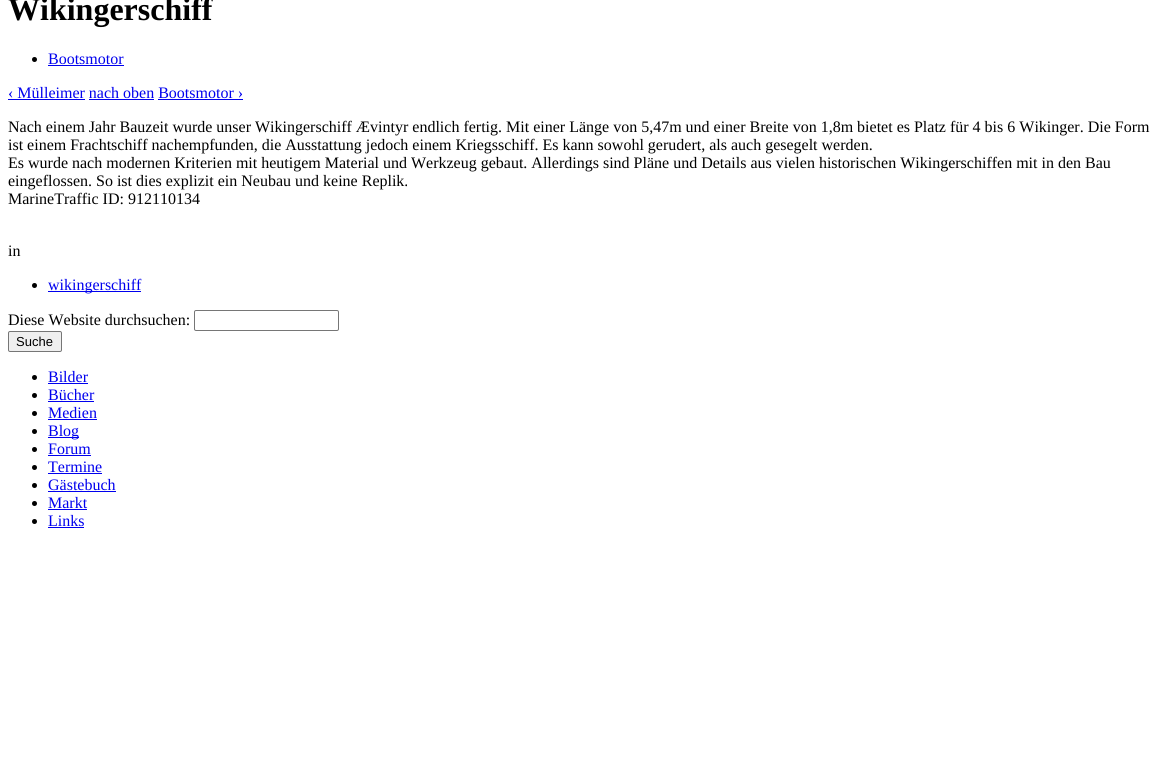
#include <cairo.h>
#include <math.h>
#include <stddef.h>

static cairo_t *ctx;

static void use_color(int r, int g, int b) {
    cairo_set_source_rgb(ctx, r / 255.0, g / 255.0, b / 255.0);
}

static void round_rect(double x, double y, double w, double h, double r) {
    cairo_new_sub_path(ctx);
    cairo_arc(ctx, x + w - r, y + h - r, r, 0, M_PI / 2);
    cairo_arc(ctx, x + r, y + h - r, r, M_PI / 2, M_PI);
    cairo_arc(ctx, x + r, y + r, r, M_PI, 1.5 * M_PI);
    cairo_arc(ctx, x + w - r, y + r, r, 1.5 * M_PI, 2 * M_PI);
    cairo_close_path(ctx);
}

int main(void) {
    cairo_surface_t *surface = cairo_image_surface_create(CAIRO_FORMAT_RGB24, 1170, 769);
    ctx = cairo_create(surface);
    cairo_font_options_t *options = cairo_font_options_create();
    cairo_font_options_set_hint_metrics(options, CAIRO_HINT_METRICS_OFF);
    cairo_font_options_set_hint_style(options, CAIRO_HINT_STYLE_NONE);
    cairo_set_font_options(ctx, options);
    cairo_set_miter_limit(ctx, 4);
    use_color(255, 255, 255);
    cairo_paint(ctx);
    cairo_select_font_face(ctx, "Liberation Serif", CAIRO_FONT_SLANT_NORMAL, CAIRO_FONT_WEIGHT_BOLD);
    cairo_set_font_size(ctx, 32);
    use_color(0, 0, 0);
    cairo_move_to(ctx, 8, 20);
    cairo_show_text(ctx, "Wikingerschiff");
    cairo_new_path(ctx);
    cairo_arc(ctx, 34.5, 59.5, 2.5, 0, 2 * M_PI);
    cairo_fill(ctx);
    cairo_select_font_face(ctx, "Liberation Serif", CAIRO_FONT_SLANT_NORMAL, CAIRO_FONT_WEIGHT_NORMAL);
    cairo_set_font_size(ctx, 16);
    use_color(0, 0, 238);
    cairo_move_to(ctx, 48, 64);
    cairo_show_text(ctx, "Bootsmotor");
    cairo_rectangle(ctx, 48, 65, 76, 1);
    cairo_fill(ctx);
    cairo_move_to(ctx, 8, 98);
    cairo_show_text(ctx, "‹ Mülleimer nach oben Bootsmotor ›");
    cairo_rectangle(ctx, 8, 99, 77, 1);
    cairo_fill(ctx);
    cairo_rectangle(ctx, 89, 99, 65, 1);
    cairo_fill(ctx);
    cairo_rectangle(ctx, 158, 99, 85, 1);
    cairo_fill(ctx);
    use_color(0, 0, 0);
    cairo_move_to(ctx, 8, 132);
    cairo_show_text(ctx, "Nach einem Jahr Bauzeit wurde unser Wikingerschiff Ævintyr endlich fertig. Mit einer Länge von 5,47m und einer Breite von 1,8m bietet es Platz für 4 bis 6 Wikinger. Die Form");
    cairo_move_to(ctx, 8, 150);
    cairo_show_text(ctx, "ist einem Frachtschiff nachempfunden, die Ausstattung jedoch einem Kriegsschiff. Es kann sowohl gerudert, als auch gesegelt werden.");
    cairo_move_to(ctx, 8, 168);
    cairo_show_text(ctx, "Es wurde nach modernen Kriterien mit heutigem Material und Werkzeug gebaut. Allerdings sind Pläne und Details aus vielen historischen Wikingerschiffen mit in den Bau");
    cairo_move_to(ctx, 8, 186);
    cairo_show_text(ctx, "eingeflossen. So ist dies explizit ein Neubau und keine Replik.");
    cairo_move_to(ctx, 8, 204);
    cairo_show_text(ctx, "MarineTraffic ID: 912110134");
    cairo_move_to(ctx, 8, 256);
    cairo_show_text(ctx, "in");
    cairo_new_path(ctx);
    cairo_arc(ctx, 34.5, 285.5, 2.5, 0, 2 * M_PI);
    cairo_fill(ctx);
    use_color(0, 0, 238);
    cairo_rectangle(ctx, 48, 291, 93, 1);
    cairo_fill(ctx);
    cairo_move_to(ctx, 48, 290);
    cairo_show_text(ctx, "wikingerschiff");
    use_color(0, 0, 0);
    cairo_move_to(ctx, 8, 325);
    cairo_show_text(ctx, "Diese Website durchsuchen:");
    round_rect(194.5, 310.5, 144, 20, 1.5);
    use_color(118, 118, 118);
    cairo_set_line_width(ctx, 1);
    cairo_stroke(ctx);
    use_color(239, 239, 239);
    round_rect(8.5, 331.5, 53, 20, 1.5);
    cairo_fill_preserve(ctx);
    use_color(118, 118, 118);
    cairo_stroke(ctx);
    cairo_select_font_face(ctx, "Liberation Sans", CAIRO_FONT_SLANT_NORMAL, CAIRO_FONT_WEIGHT_NORMAL);
    cairo_set_font_size(ctx, 13);
    use_color(0, 0, 0);
    cairo_move_to(ctx, 16, 346);
    cairo_show_text(ctx, "Suche");
    cairo_new_path(ctx);
    cairo_arc(ctx, 34.5, 377.5, 2.5, 0, 2 * M_PI);
    cairo_fill(ctx);
    cairo_select_font_face(ctx, "Liberation Serif", CAIRO_FONT_SLANT_NORMAL, CAIRO_FONT_WEIGHT_NORMAL);
    cairo_set_font_size(ctx, 16);
    use_color(0, 0, 238);
    cairo_move_to(ctx, 48, 382);
    cairo_show_text(ctx, "Bilder");
    cairo_rectangle(ctx, 48, 383, 40, 1);
    cairo_fill(ctx);
    use_color(0, 0, 0);
    cairo_arc(ctx, 34.5, 395.5, 2.5, 0, 2 * M_PI);
    cairo_fill(ctx);
    use_color(0, 0, 238);
    cairo_move_to(ctx, 48, 400);
    cairo_show_text(ctx, "Bücher");
    cairo_rectangle(ctx, 48, 401, 46, 1);
    cairo_fill(ctx);
    use_color(0, 0, 0);
    cairo_arc(ctx, 34.5, 413.5, 2.5, 0, 2 * M_PI);
    cairo_fill(ctx);
    use_color(0, 0, 238);
    cairo_move_to(ctx, 48, 418);
    cairo_show_text(ctx, "Medien");
    cairo_rectangle(ctx, 48, 419, 49, 1);
    cairo_fill(ctx);
    use_color(0, 0, 0);
    cairo_arc(ctx, 34.5, 431.5, 2.5, 0, 2 * M_PI);
    cairo_fill(ctx);
    use_color(0, 0, 238);
    cairo_rectangle(ctx, 48, 437, 31, 1);
    cairo_fill(ctx);
    cairo_move_to(ctx, 48, 436);
    cairo_show_text(ctx, "Blog");
    use_color(0, 0, 0);
    cairo_new_path(ctx);
    cairo_arc(ctx, 34.5, 449.5, 2.5, 0, 2 * M_PI);
    cairo_fill(ctx);
    use_color(0, 0, 238);
    cairo_move_to(ctx, 48, 454);
    cairo_show_text(ctx, "Forum");
    cairo_rectangle(ctx, 48, 455, 43, 1);
    cairo_fill(ctx);
    use_color(0, 0, 0);
    cairo_arc(ctx, 34.5, 467.5, 2.5, 0, 2 * M_PI);
    cairo_fill(ctx);
    use_color(0, 0, 238);
    cairo_move_to(ctx, 48, 472);
    cairo_show_text(ctx, "Termine");
    cairo_rectangle(ctx, 48, 473, 54, 1);
    cairo_fill(ctx);
    use_color(0, 0, 0);
    cairo_arc(ctx, 34.5, 485.5, 2.5, 0, 2 * M_PI);
    cairo_fill(ctx);
    use_color(0, 0, 238);
    cairo_move_to(ctx, 48, 490);
    cairo_show_text(ctx, "Gästebuch");
    cairo_rectangle(ctx, 48, 491, 68, 1);
    cairo_fill(ctx);
    use_color(0, 0, 0);
    cairo_arc(ctx, 34.5, 503.5, 2.5, 0, 2 * M_PI);
    cairo_fill(ctx);
    use_color(0, 0, 238);
    cairo_move_to(ctx, 48, 508);
    cairo_show_text(ctx, "Markt");
    cairo_rectangle(ctx, 48, 509, 39, 1);
    cairo_fill(ctx);
    use_color(0, 0, 0);
    cairo_arc(ctx, 34.5, 521.5, 2.5, 0, 2 * M_PI);
    cairo_fill(ctx);
    use_color(0, 0, 238);
    cairo_move_to(ctx, 48, 526);
    cairo_show_text(ctx, "Links");
    cairo_rectangle(ctx, 48, 527, 36, 1);
    cairo_fill(ctx);
    cairo_surface_write_to_png(surface, "result.png");
    cairo_font_options_destroy(options);
    cairo_destroy(ctx);
    cairo_surface_destroy(surface);
    return 0;
}
